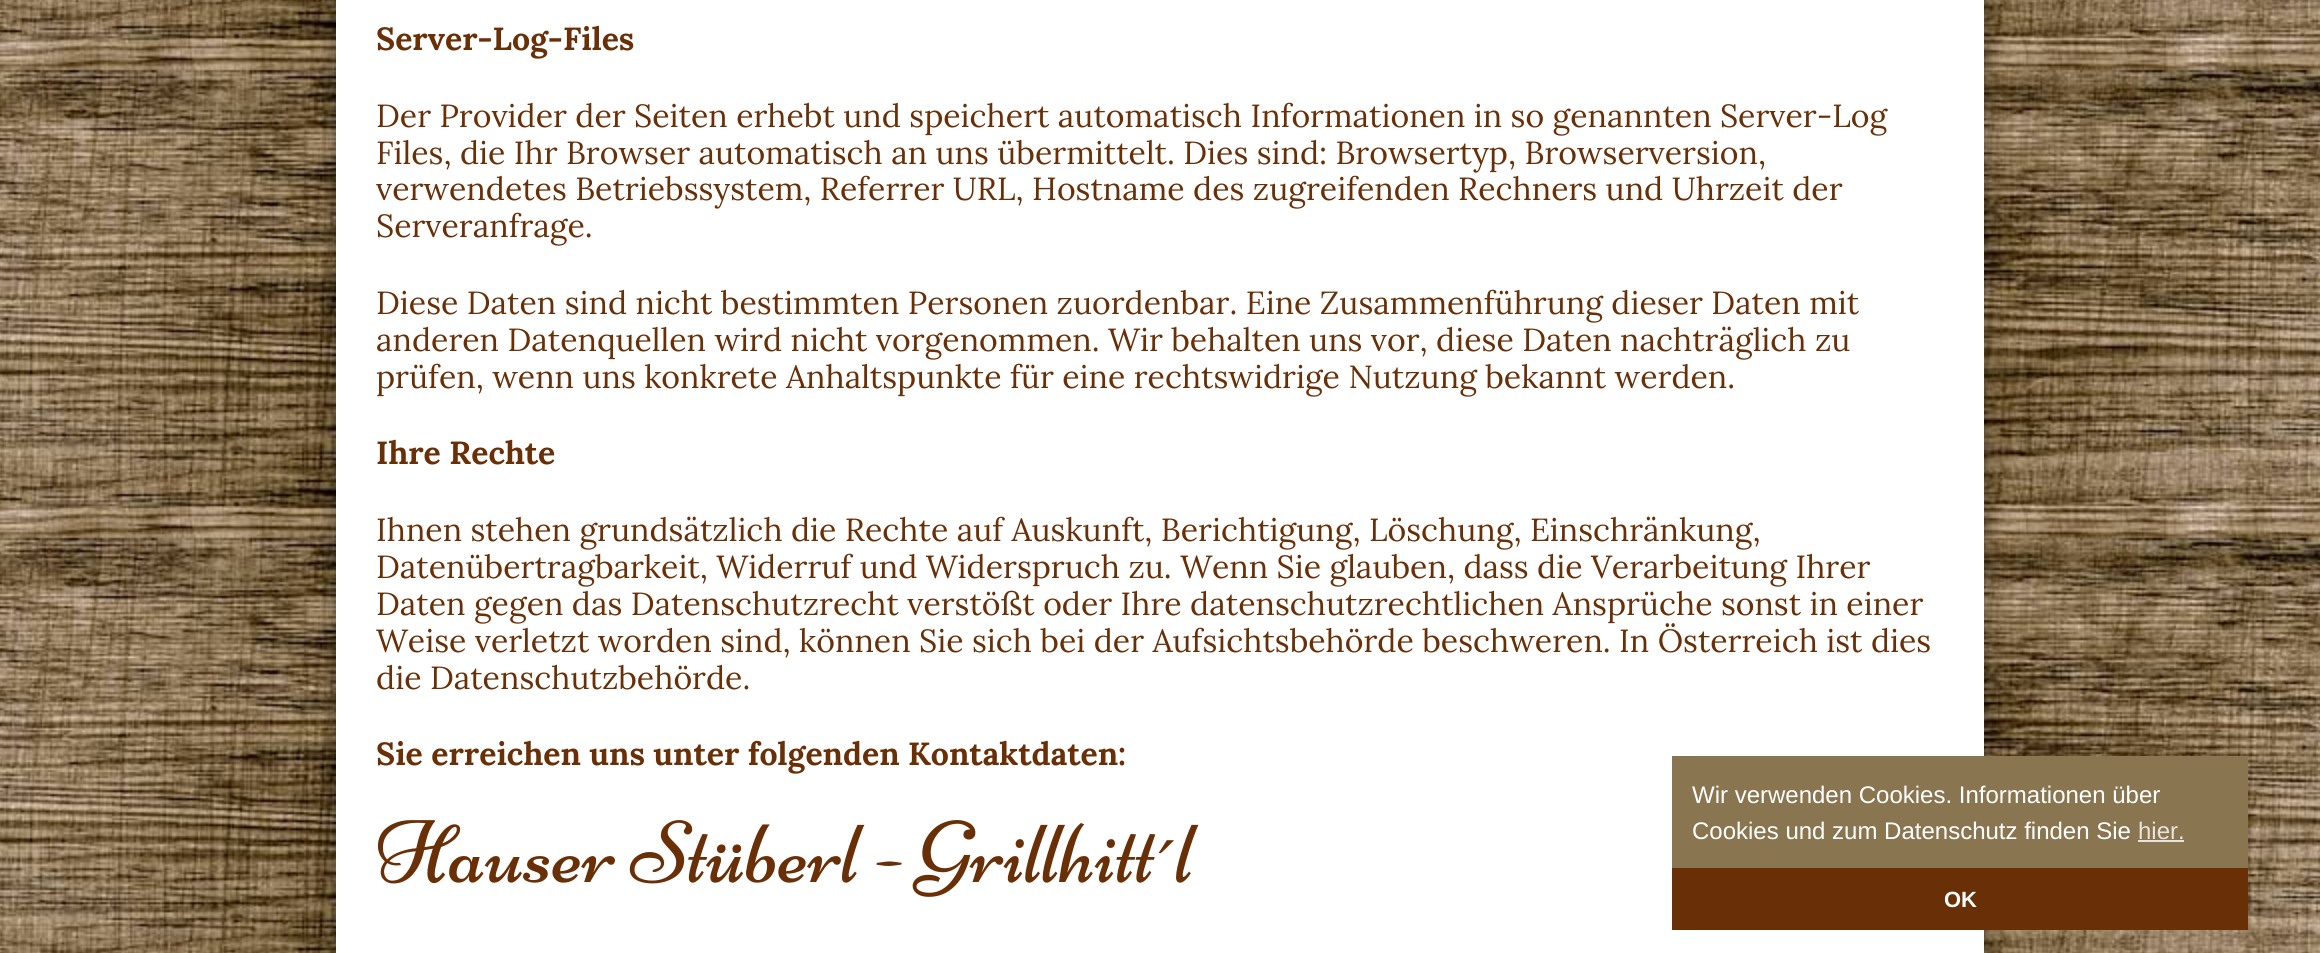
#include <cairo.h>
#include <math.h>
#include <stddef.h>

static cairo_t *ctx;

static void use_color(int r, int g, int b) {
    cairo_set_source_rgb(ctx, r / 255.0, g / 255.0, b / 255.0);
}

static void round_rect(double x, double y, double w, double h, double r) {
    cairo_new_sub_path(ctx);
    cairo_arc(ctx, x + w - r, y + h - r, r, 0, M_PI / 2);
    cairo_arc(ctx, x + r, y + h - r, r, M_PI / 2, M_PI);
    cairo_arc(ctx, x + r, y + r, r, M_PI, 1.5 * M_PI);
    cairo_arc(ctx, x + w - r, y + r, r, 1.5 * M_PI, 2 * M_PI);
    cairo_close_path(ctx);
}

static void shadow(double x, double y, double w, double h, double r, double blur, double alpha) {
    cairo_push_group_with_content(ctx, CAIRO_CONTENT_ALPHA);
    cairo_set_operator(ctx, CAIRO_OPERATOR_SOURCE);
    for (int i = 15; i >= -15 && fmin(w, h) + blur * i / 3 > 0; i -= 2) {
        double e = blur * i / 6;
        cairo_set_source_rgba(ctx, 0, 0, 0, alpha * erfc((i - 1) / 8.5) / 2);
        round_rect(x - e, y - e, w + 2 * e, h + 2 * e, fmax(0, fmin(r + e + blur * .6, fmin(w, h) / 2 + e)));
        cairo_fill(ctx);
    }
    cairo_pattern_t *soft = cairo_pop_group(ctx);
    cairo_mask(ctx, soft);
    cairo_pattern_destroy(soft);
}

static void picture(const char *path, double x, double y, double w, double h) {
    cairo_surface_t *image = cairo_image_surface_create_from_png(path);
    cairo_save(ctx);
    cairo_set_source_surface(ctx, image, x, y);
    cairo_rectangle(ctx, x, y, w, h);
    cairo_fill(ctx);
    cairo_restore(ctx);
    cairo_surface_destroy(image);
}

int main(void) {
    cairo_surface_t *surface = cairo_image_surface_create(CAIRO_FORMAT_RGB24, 2320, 953);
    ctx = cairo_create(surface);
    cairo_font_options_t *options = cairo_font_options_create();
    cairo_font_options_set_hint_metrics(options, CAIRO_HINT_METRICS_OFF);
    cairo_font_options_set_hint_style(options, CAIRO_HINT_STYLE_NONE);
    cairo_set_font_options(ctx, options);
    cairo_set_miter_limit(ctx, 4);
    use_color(255, 255, 255);
    cairo_paint(ctx);
    picture("img1.png", 0, 0, 2320, 953);
    use_color(0, 0, 0);
    shadow(336, -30, 1648, 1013, 0, 10, 0.4);
    use_color(255, 255, 255);
    cairo_rectangle(ctx, 336, 0, 1648, 953);
    cairo_fill(ctx);
    cairo_select_font_face(ctx, "Lora", CAIRO_FONT_SLANT_NORMAL, CAIRO_FONT_WEIGHT_BOLD);
    cairo_set_font_size(ctx, 32);
    use_color(105, 47, 7);
    cairo_move_to(ctx, 376, 50);
    cairo_show_text(ctx, "Server-Log-Files");
    cairo_select_font_face(ctx, "Lora", CAIRO_FONT_SLANT_NORMAL, CAIRO_FONT_WEIGHT_NORMAL);
    cairo_move_to(ctx, 376, 127);
    cairo_show_text(ctx, "Der Provider der Seiten erhebt und speichert automatisch Informationen in so genannten Server-Log");
    cairo_move_to(ctx, 376, 164);
    cairo_show_text(ctx, "Files, die Ihr Browser automatisch an uns übermittelt. Dies sind: Browsertyp, Browserversion,");
    cairo_move_to(ctx, 376, 200);
    cairo_show_text(ctx, "verwendetes Betriebssystem, Referrer URL, Hostname des zugreifenden Rechners und Uhrzeit der");
    cairo_move_to(ctx, 376, 237);
    cairo_show_text(ctx, "Serveranfrage.");
    cairo_move_to(ctx, 376, 314);
    cairo_show_text(ctx, "Diese Daten sind nicht bestimmten Personen zuordenbar. Eine Zusammenführung dieser Daten mit");
    cairo_move_to(ctx, 376, 351);
    cairo_show_text(ctx, "anderen Datenquellen wird nicht vorgenommen. Wir behalten uns vor, diese Daten nachträglich zu");
    cairo_move_to(ctx, 376, 388);
    cairo_show_text(ctx, "prüfen, wenn uns konkrete Anhaltspunkte für eine rechtswidrige Nutzung bekannt werden.");
    cairo_select_font_face(ctx, "Lora", CAIRO_FONT_SLANT_NORMAL, CAIRO_FONT_WEIGHT_BOLD);
    cairo_move_to(ctx, 376, 464);
    cairo_show_text(ctx, "Ihre Rechte");
    cairo_select_font_face(ctx, "Lora", CAIRO_FONT_SLANT_NORMAL, CAIRO_FONT_WEIGHT_NORMAL);
    cairo_move_to(ctx, 376, 541);
    cairo_show_text(ctx, "Ihnen stehen grundsätzlich die Rechte auf Auskunft, Berichtigung, Löschung, Einschränkung,");
    cairo_move_to(ctx, 376, 578);
    cairo_show_text(ctx, "Datenübertragbarkeit, Widerruf und Widerspruch zu. Wenn Sie glauben, dass die Verarbeitung Ihrer");
    cairo_move_to(ctx, 376, 615);
    cairo_show_text(ctx, "Daten gegen das Datenschutzrecht verstößt oder Ihre datenschutzrechtlichen Ansprüche sonst in einer");
    cairo_move_to(ctx, 376, 652);
    cairo_show_text(ctx, "Weise verletzt worden sind, können Sie sich bei der Aufsichtsbehörde beschweren. In Österreich ist dies");
    cairo_move_to(ctx, 376, 689);
    cairo_show_text(ctx, "die Datenschutzbehörde.");
    cairo_select_font_face(ctx, "Lora", CAIRO_FONT_SLANT_NORMAL, CAIRO_FONT_WEIGHT_BOLD);
    cairo_move_to(ctx, 376, 765);
    cairo_show_text(ctx, "Sie erreichen uns unter folgenden Kontaktdaten:");
    picture("img2.png", 377, 820, 822, 77);
    use_color(138, 117, 81);
    cairo_rectangle(ctx, 1672, 756, 576, 112);
    cairo_fill(ctx);
    cairo_select_font_face(ctx, "Liberation Sans", CAIRO_FONT_SLANT_NORMAL, CAIRO_FONT_WEIGHT_NORMAL);
    cairo_set_font_size(ctx, 24);
    use_color(255, 255, 255);
    cairo_move_to(ctx, 1692, 803);
    cairo_show_text(ctx, "Wir verwenden Cookies. Informationen über");
    cairo_move_to(ctx, 1692, 839);
    cairo_show_text(ctx, "Cookies und zum Datenschutz finden Sie");
    use_color(232, 227, 220);
    cairo_move_to(ctx, 2138, 839);
    cairo_show_text(ctx, "hier.");
    cairo_rectangle(ctx, 2138, 840, 46, 2);
    cairo_fill(ctx);
    use_color(105, 47, 7);
    cairo_rectangle(ctx, 1672, 868, 576, 62);
    cairo_fill(ctx);
    cairo_select_font_face(ctx, "Liberation Sans", CAIRO_FONT_SLANT_NORMAL, CAIRO_FONT_WEIGHT_BOLD);
    cairo_set_font_size(ctx, 22);
    use_color(255, 255, 255);
    cairo_move_to(ctx, 1944, 907);
    cairo_show_text(ctx, "OK");
    cairo_surface_write_to_png(surface, "result.png");
    cairo_font_options_destroy(options);
    cairo_destroy(ctx);
    cairo_surface_destroy(surface);
    return 0;
}
